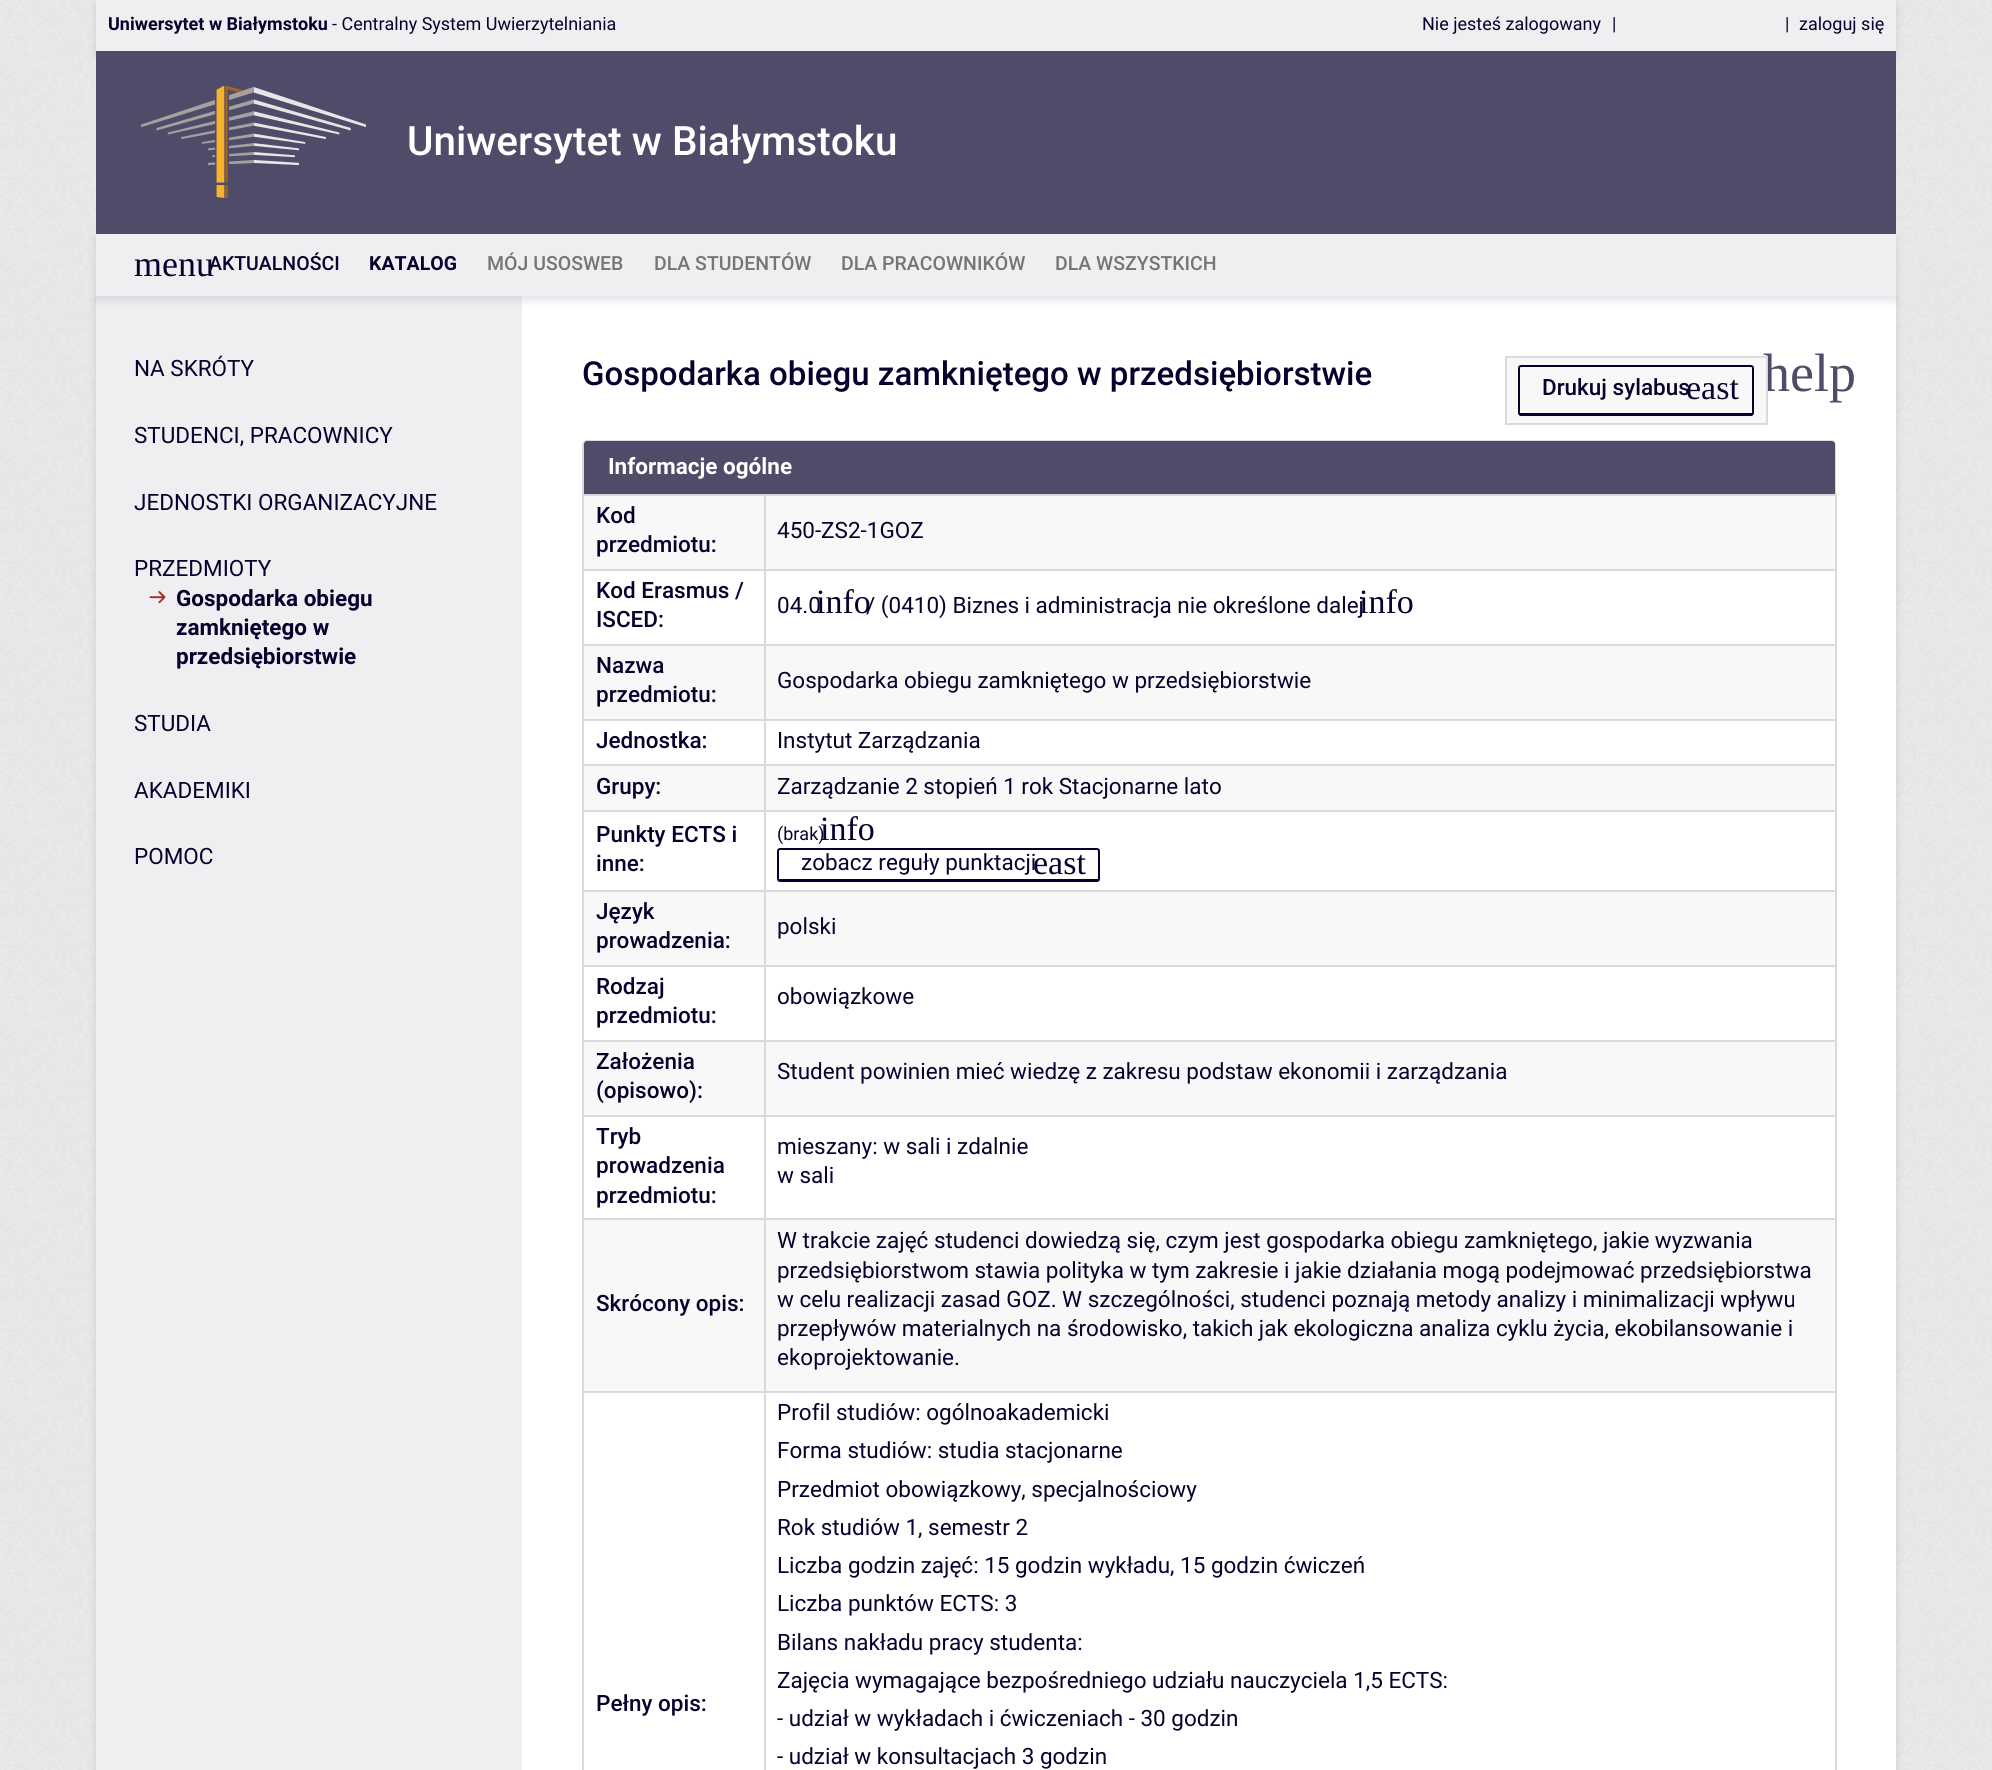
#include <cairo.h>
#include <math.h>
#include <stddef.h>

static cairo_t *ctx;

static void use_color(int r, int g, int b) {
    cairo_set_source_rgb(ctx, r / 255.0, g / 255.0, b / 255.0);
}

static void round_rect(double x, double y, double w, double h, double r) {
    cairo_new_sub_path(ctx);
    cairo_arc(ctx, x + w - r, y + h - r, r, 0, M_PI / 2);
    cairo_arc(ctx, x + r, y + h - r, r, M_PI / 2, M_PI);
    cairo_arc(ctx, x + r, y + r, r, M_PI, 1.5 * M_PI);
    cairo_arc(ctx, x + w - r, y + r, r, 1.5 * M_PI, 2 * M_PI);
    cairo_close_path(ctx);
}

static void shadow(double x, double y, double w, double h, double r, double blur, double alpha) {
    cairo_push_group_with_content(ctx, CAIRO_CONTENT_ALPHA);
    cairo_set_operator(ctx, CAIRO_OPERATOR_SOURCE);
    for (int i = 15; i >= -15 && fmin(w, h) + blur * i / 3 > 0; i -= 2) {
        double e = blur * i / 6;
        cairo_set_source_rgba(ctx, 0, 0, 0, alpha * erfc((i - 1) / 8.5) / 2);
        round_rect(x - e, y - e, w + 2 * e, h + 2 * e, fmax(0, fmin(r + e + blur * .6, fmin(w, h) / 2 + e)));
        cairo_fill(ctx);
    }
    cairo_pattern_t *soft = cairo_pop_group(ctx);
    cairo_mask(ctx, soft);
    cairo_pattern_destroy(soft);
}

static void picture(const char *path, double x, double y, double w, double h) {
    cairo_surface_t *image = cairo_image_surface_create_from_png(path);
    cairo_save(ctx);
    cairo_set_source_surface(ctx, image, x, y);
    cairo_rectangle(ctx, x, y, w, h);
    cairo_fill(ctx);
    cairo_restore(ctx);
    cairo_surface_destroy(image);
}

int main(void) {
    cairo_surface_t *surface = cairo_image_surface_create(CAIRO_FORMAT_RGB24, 1992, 1770);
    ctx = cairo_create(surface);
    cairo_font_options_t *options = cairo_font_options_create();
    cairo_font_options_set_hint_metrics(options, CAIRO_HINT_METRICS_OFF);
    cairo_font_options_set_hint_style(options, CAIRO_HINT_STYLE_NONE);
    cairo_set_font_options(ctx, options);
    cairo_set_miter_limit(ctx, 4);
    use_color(255, 255, 255);
    cairo_paint(ctx);
    picture("img1.png", 0, 0, 1992, 1770);
    use_color(6, 6, 51);
    shadow(96, 5, 1800, 51, 0, 4.5, 0.12);
    use_color(239, 239, 241);
    cairo_rectangle(ctx, 96, 0, 1800, 51);
    cairo_fill(ctx);
    cairo_select_font_face(ctx, "Roboto", CAIRO_FONT_SLANT_NORMAL, CAIRO_FONT_WEIGHT_BOLD);
    cairo_set_font_size(ctx, 18);
    use_color(6, 2, 46);
    cairo_move_to(ctx, 108, 30);
    cairo_show_text(ctx, "Uniwersytet w Białymstoku");
    cairo_select_font_face(ctx, "Roboto", CAIRO_FONT_SLANT_NORMAL, CAIRO_FONT_WEIGHT_NORMAL);
    cairo_move_to(ctx, 332, 30);
    cairo_show_text(ctx, "- Centralny System Uwierzytelniania");
    cairo_move_to(ctx, 1422, 30);
    cairo_show_text(ctx, "Nie jesteś zalogowany");
    cairo_move_to(ctx, 1612, 30);
    cairo_show_text(ctx, "|");
    cairo_move_to(ctx, 1785, 30);
    cairo_show_text(ctx, "|");
    cairo_move_to(ctx, 1799, 30);
    cairo_show_text(ctx, "zaloguj się");
    use_color(79, 76, 106);
    cairo_rectangle(ctx, 96, 51, 1800, 183);
    cairo_fill(ctx);
    picture("img2.png", 141, 86, 225, 112);
    cairo_select_font_face(ctx, "Roboto Medium", CAIRO_FONT_SLANT_NORMAL, CAIRO_FONT_WEIGHT_NORMAL);
    cairo_set_font_size(ctx, 40.5);
    use_color(255, 255, 255);
    cairo_move_to(ctx, 407, 155);
    cairo_show_text(ctx, "Uniwersytet w Białymstoku");
    use_color(6, 6, 51);
    shadow(96, 300, 1800, 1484, 0, 4.5, 0.12);
    use_color(255, 255, 255);
    cairo_rectangle(ctx, 522, 296, 1374, 1474);
    cairo_fill(ctx);
    use_color(239, 239, 241);
    cairo_rectangle(ctx, 96, 296, 426, 1474);
    cairo_fill(ctx);
    use_color(6, 6, 51);
    shadow(96, 239, 1800, 61, 0, 4.5, 0.12);
    use_color(239, 239, 241);
    cairo_rectangle(ctx, 96, 234, 1800, 62);
    cairo_fill(ctx);
    cairo_select_font_face(ctx, "Liberation Serif", CAIRO_FONT_SLANT_NORMAL, CAIRO_FONT_WEIGHT_NORMAL);
    cairo_set_font_size(ctx, 36);
    use_color(6, 2, 46);
    cairo_move_to(ctx, 134, 276);
    cairo_show_text(ctx, "menu");
    cairo_select_font_face(ctx, "Roboto Medium", CAIRO_FONT_SLANT_NORMAL, CAIRO_FONT_WEIGHT_NORMAL);
    cairo_set_font_size(ctx, 19.5);
    cairo_move_to(ctx, 209, 270);
    cairo_show_text(ctx, "AKTUALNOŚCI");
    cairo_select_font_face(ctx, "Roboto", CAIRO_FONT_SLANT_NORMAL, CAIRO_FONT_WEIGHT_BOLD);
    cairo_move_to(ctx, 369, 270);
    cairo_show_text(ctx, "KATALOG");
    cairo_select_font_face(ctx, "Roboto Medium", CAIRO_FONT_SLANT_NORMAL, CAIRO_FONT_WEIGHT_NORMAL);
    use_color(117, 117, 117);
    cairo_move_to(ctx, 487, 270);
    cairo_show_text(ctx, "MÓJ USOSWEB");
    cairo_move_to(ctx, 654, 270);
    cairo_show_text(ctx, "DLA STUDENTÓW");
    cairo_move_to(ctx, 841, 270);
    cairo_show_text(ctx, "DLA PRACOWNIKÓW");
    cairo_move_to(ctx, 1055, 270);
    cairo_show_text(ctx, "DLA WSZYSTKICH");
    cairo_select_font_face(ctx, "Roboto", CAIRO_FONT_SLANT_NORMAL, CAIRO_FONT_WEIGHT_NORMAL);
    cairo_set_font_size(ctx, 22.5);
    use_color(6, 2, 46);
    cairo_move_to(ctx, 134, 376);
    cairo_show_text(ctx, "NA SKRÓTY");
    cairo_move_to(ctx, 134, 443);
    cairo_show_text(ctx, "STUDENCI, PRACOWNICY");
    cairo_move_to(ctx, 134, 510);
    cairo_show_text(ctx, "JEDNOSTKI ORGANIZACYJNE");
    cairo_move_to(ctx, 134, 576);
    cairo_show_text(ctx, "PRZEDMIOTY");
    picture("img3.png", 149, 591, 17, 13);
    cairo_select_font_face(ctx, "Roboto", CAIRO_FONT_SLANT_NORMAL, CAIRO_FONT_WEIGHT_BOLD);
    cairo_move_to(ctx, 176, 606);
    cairo_show_text(ctx, "Gospodarka obiegu");
    cairo_move_to(ctx, 176, 635);
    cairo_show_text(ctx, "zamkniętego w");
    cairo_move_to(ctx, 176, 664);
    cairo_show_text(ctx, "przedsiębiorstwie");
    cairo_select_font_face(ctx, "Roboto", CAIRO_FONT_SLANT_NORMAL, CAIRO_FONT_WEIGHT_NORMAL);
    cairo_move_to(ctx, 134, 731);
    cairo_show_text(ctx, "STUDIA");
    cairo_move_to(ctx, 134, 798);
    cairo_show_text(ctx, "AKADEMIKI");
    cairo_move_to(ctx, 134, 864);
    cairo_show_text(ctx, "POMOC");
    cairo_select_font_face(ctx, "Roboto Medium", CAIRO_FONT_SLANT_NORMAL, CAIRO_FONT_WEIGHT_NORMAL);
    cairo_set_font_size(ctx, 33);
    cairo_move_to(ctx, 582, 385);
    cairo_show_text(ctx, "Gospodarka obiegu zamkniętego w przedsiębiorstwie");
    cairo_select_font_face(ctx, "Liberation Serif", CAIRO_FONT_SLANT_NORMAL, CAIRO_FONT_WEIGHT_NORMAL);
    cairo_set_font_size(ctx, 54);
    use_color(79, 76, 106);
    cairo_move_to(ctx, 1763, 391);
    cairo_show_text(ctx, "help");
    use_color(248, 248, 248);
    cairo_rectangle(ctx, 1507, 358, 259, 65);
    cairo_fill(ctx);
    use_color(218, 218, 222);
    cairo_rectangle(ctx, 1505, 356, 262, 2);
    cairo_fill(ctx);
    cairo_rectangle(ctx, 1766, 356, 2, 69);
    cairo_fill(ctx);
    cairo_rectangle(ctx, 1505, 423, 262, 2);
    cairo_fill(ctx);
    cairo_rectangle(ctx, 1505, 356, 2, 69);
    cairo_fill(ctx);
    round_rect(1519, 366, 234, 49, 2);
    use_color(6, 2, 46);
    cairo_stroke(ctx);
    cairo_rectangle(ctx, 1520, 413, 232, 1);
    cairo_fill(ctx);
    cairo_select_font_face(ctx, "Roboto Medium", CAIRO_FONT_SLANT_NORMAL, CAIRO_FONT_WEIGHT_NORMAL);
    cairo_set_font_size(ctx, 22.5);
    cairo_move_to(ctx, 1542, 395);
    cairo_show_text(ctx, "Drukuj sylabus");
    cairo_select_font_face(ctx, "Liberation Serif", CAIRO_FONT_SLANT_NORMAL, CAIRO_FONT_WEIGHT_NORMAL);
    cairo_set_font_size(ctx, 34);
    cairo_move_to(ctx, 1686, 399);
    cairo_show_text(ctx, "east");
    cairo_new_path(ctx);
    cairo_move_to(ctx, 587, 441);
    cairo_line_to(ctx, 1831, 441);
    cairo_curve_to(ctx, 1833, 441, 1835, 443, 1835, 445);
    cairo_line_to(ctx, 1835, 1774);
    cairo_curve_to(ctx, 1835, 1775, 1834, 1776, 1833, 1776);
    cairo_line_to(ctx, 585, 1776);
    cairo_curve_to(ctx, 584, 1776, 583, 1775, 583, 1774);
    cairo_line_to(ctx, 583, 445);
    cairo_curve_to(ctx, 583, 443, 585, 441, 587, 441);
    cairo_close_path(ctx);
    use_color(218, 218, 222);
    cairo_stroke(ctx);
    use_color(79, 76, 106);
    cairo_new_path(ctx);
    cairo_move_to(ctx, 587, 441);
    cairo_line_to(ctx, 1832, 441);
    cairo_curve_to(ctx, 1833.5, 441, 1835, 442.5, 1835, 444);
    cairo_line_to(ctx, 1835, 495);
    cairo_line_to(ctx, 584, 495);
    cairo_line_to(ctx, 584, 444);
    cairo_curve_to(ctx, 584, 442.5, 585.5, 441, 587, 441);
    cairo_close_path(ctx);
    cairo_fill(ctx);
    cairo_select_font_face(ctx, "Roboto", CAIRO_FONT_SLANT_NORMAL, CAIRO_FONT_WEIGHT_BOLD);
    cairo_set_font_size(ctx, 22.5);
    use_color(255, 255, 255);
    cairo_move_to(ctx, 608, 474);
    cairo_show_text(ctx, "Informacje ogólne");
    use_color(248, 248, 248);
    cairo_rectangle(ctx, 584, 496, 180, 73);
    cairo_fill(ctx);
    use_color(218, 218, 222);
    cairo_rectangle(ctx, 764, 494, 1072, 2);
    cairo_fill(ctx);
    cairo_rectangle(ctx, 764, 569, 1072, 2);
    cairo_fill(ctx);
    cairo_rectangle(ctx, 764, 644, 1072, 2);
    cairo_fill(ctx);
    cairo_rectangle(ctx, 764, 719, 1072, 2);
    cairo_fill(ctx);
    cairo_rectangle(ctx, 764, 764, 1072, 2);
    cairo_fill(ctx);
    cairo_rectangle(ctx, 764, 810, 1072, 2);
    cairo_fill(ctx);
    cairo_rectangle(ctx, 764, 890, 1072, 2);
    cairo_fill(ctx);
    cairo_rectangle(ctx, 764, 965, 1072, 2);
    cairo_fill(ctx);
    cairo_rectangle(ctx, 764, 1040, 1072, 2);
    cairo_fill(ctx);
    cairo_rectangle(ctx, 764, 1115, 1072, 2);
    cairo_fill(ctx);
    cairo_rectangle(ctx, 764, 1218, 1072, 2);
    cairo_fill(ctx);
    cairo_rectangle(ctx, 764, 1391, 1072, 2);
    cairo_fill(ctx);
    cairo_rectangle(ctx, 764, 1391, 2, 379);
    cairo_fill(ctx);
    cairo_rectangle(ctx, 582, 1391, 183, 2);
    cairo_fill(ctx);
    cairo_rectangle(ctx, 764, 1218, 2, 174);
    cairo_fill(ctx);
    cairo_rectangle(ctx, 582, 1218, 183, 2);
    cairo_fill(ctx);
    cairo_rectangle(ctx, 764, 1115, 2, 105);
    cairo_fill(ctx);
    cairo_rectangle(ctx, 582, 1115, 183, 2);
    cairo_fill(ctx);
    cairo_rectangle(ctx, 764, 1040, 2, 76);
    cairo_fill(ctx);
    cairo_rectangle(ctx, 582, 1040, 183, 2);
    cairo_fill(ctx);
    cairo_rectangle(ctx, 764, 965, 2, 76);
    cairo_fill(ctx);
    cairo_rectangle(ctx, 582, 965, 183, 2);
    cairo_fill(ctx);
    cairo_rectangle(ctx, 764, 890, 2, 76);
    cairo_fill(ctx);
    cairo_rectangle(ctx, 582, 890, 183, 2);
    cairo_fill(ctx);
    cairo_rectangle(ctx, 764, 810, 2, 81);
    cairo_fill(ctx);
    cairo_rectangle(ctx, 582, 810, 183, 2);
    cairo_fill(ctx);
    cairo_rectangle(ctx, 764, 764, 2, 48);
    cairo_fill(ctx);
    cairo_rectangle(ctx, 582, 764, 183, 2);
    cairo_fill(ctx);
    cairo_rectangle(ctx, 764, 719, 2, 46);
    cairo_fill(ctx);
    cairo_rectangle(ctx, 582, 719, 183, 2);
    cairo_fill(ctx);
    cairo_rectangle(ctx, 764, 644, 2, 76);
    cairo_fill(ctx);
    cairo_rectangle(ctx, 582, 644, 183, 2);
    cairo_fill(ctx);
    cairo_rectangle(ctx, 764, 569, 2, 76);
    cairo_fill(ctx);
    cairo_rectangle(ctx, 582, 569, 183, 2);
    cairo_fill(ctx);
    cairo_rectangle(ctx, 764, 494, 2, 76);
    cairo_fill(ctx);
    cairo_rectangle(ctx, 582, 494, 183, 2);
    cairo_fill(ctx);
    cairo_select_font_face(ctx, "Roboto Medium", CAIRO_FONT_SLANT_NORMAL, CAIRO_FONT_WEIGHT_NORMAL);
    use_color(6, 2, 46);
    cairo_move_to(ctx, 596, 523);
    cairo_show_text(ctx, "Kod");
    cairo_move_to(ctx, 596, 552);
    cairo_show_text(ctx, "przedmiotu:");
    use_color(248, 248, 248);
    cairo_rectangle(ctx, 766, 496, 1069, 73);
    cairo_fill(ctx);
    cairo_select_font_face(ctx, "Roboto", CAIRO_FONT_SLANT_NORMAL, CAIRO_FONT_WEIGHT_NORMAL);
    use_color(6, 2, 46);
    cairo_move_to(ctx, 777, 538);
    cairo_show_text(ctx, "450-ZS2-1GOZ");
    cairo_select_font_face(ctx, "Roboto Medium", CAIRO_FONT_SLANT_NORMAL, CAIRO_FONT_WEIGHT_NORMAL);
    cairo_move_to(ctx, 596, 598);
    cairo_show_text(ctx, "Kod Erasmus /");
    cairo_move_to(ctx, 596, 627);
    cairo_show_text(ctx, "ISCED:");
    use_color(255, 255, 255);
    cairo_rectangle(ctx, 1834, 571, 1, 73);
    cairo_fill(ctx);
    cairo_select_font_face(ctx, "Roboto", CAIRO_FONT_SLANT_NORMAL, CAIRO_FONT_WEIGHT_NORMAL);
    use_color(6, 2, 46);
    cairo_move_to(ctx, 777, 613);
    cairo_show_text(ctx, "04.0");
    cairo_move_to(ctx, 866, 613);
    cairo_show_text(ctx, "/ (0410) Biznes i administracja nie określone dalej");
    cairo_select_font_face(ctx, "Liberation Serif", CAIRO_FONT_SLANT_NORMAL, CAIRO_FONT_WEIGHT_NORMAL);
    cairo_set_font_size(ctx, 34);
    cairo_move_to(ctx, 816, 613);
    cairo_show_text(ctx, "info");
    cairo_move_to(ctx, 1359, 613);
    cairo_show_text(ctx, "info");
    use_color(248, 248, 248);
    cairo_rectangle(ctx, 584, 646, 180, 73);
    cairo_fill(ctx);
    cairo_select_font_face(ctx, "Roboto Medium", CAIRO_FONT_SLANT_NORMAL, CAIRO_FONT_WEIGHT_NORMAL);
    cairo_set_font_size(ctx, 22.5);
    use_color(6, 2, 46);
    cairo_move_to(ctx, 596, 673);
    cairo_show_text(ctx, "Nazwa");
    cairo_move_to(ctx, 596, 702);
    cairo_show_text(ctx, "przedmiotu:");
    use_color(248, 248, 248);
    cairo_rectangle(ctx, 766, 646, 1069, 73);
    cairo_fill(ctx);
    cairo_select_font_face(ctx, "Roboto", CAIRO_FONT_SLANT_NORMAL, CAIRO_FONT_WEIGHT_NORMAL);
    use_color(6, 2, 46);
    cairo_move_to(ctx, 777, 688);
    cairo_show_text(ctx, "Gospodarka obiegu zamkniętego w przedsiębiorstwie");
    cairo_select_font_face(ctx, "Roboto Medium", CAIRO_FONT_SLANT_NORMAL, CAIRO_FONT_WEIGHT_NORMAL);
    cairo_move_to(ctx, 596, 748);
    cairo_show_text(ctx, "Jednostka:");
    use_color(255, 255, 255);
    cairo_rectangle(ctx, 1834, 721, 1, 43);
    cairo_fill(ctx);
    cairo_select_font_face(ctx, "Roboto", CAIRO_FONT_SLANT_NORMAL, CAIRO_FONT_WEIGHT_NORMAL);
    use_color(6, 2, 46);
    cairo_move_to(ctx, 777, 748);
    cairo_show_text(ctx, "Instytut Zarządzania");
    use_color(248, 248, 248);
    cairo_rectangle(ctx, 584, 766, 180, 44);
    cairo_fill(ctx);
    cairo_select_font_face(ctx, "Roboto Medium", CAIRO_FONT_SLANT_NORMAL, CAIRO_FONT_WEIGHT_NORMAL);
    use_color(6, 2, 46);
    cairo_move_to(ctx, 596, 794);
    cairo_show_text(ctx, "Grupy:");
    use_color(248, 248, 248);
    cairo_rectangle(ctx, 766, 766, 1069, 44);
    cairo_fill(ctx);
    cairo_select_font_face(ctx, "Roboto", CAIRO_FONT_SLANT_NORMAL, CAIRO_FONT_WEIGHT_NORMAL);
    use_color(6, 2, 46);
    cairo_move_to(ctx, 777, 794);
    cairo_show_text(ctx, "Zarządzanie 2 stopień 1 rok Stacjonarne lato");
    cairo_select_font_face(ctx, "Roboto Medium", CAIRO_FONT_SLANT_NORMAL, CAIRO_FONT_WEIGHT_NORMAL);
    cairo_move_to(ctx, 596, 842);
    cairo_show_text(ctx, "Punkty ECTS i");
    cairo_move_to(ctx, 596, 871);
    cairo_show_text(ctx, "inne:");
    use_color(255, 255, 255);
    cairo_rectangle(ctx, 1834, 812, 1, 78);
    cairo_fill(ctx);
    cairo_select_font_face(ctx, "Roboto", CAIRO_FONT_SLANT_NORMAL, CAIRO_FONT_WEIGHT_NORMAL);
    cairo_set_font_size(ctx, 18);
    use_color(6, 2, 46);
    cairo_move_to(ctx, 777, 840);
    cairo_show_text(ctx, "(brak)");
    cairo_select_font_face(ctx, "Liberation Serif", CAIRO_FONT_SLANT_NORMAL, CAIRO_FONT_WEIGHT_NORMAL);
    cairo_set_font_size(ctx, 34);
    cairo_move_to(ctx, 820, 840);
    cairo_show_text(ctx, "info");
    round_rect(778, 849, 321, 32, 2);
    cairo_stroke(ctx);
    cairo_rectangle(ctx, 779, 879, 319, 1);
    cairo_fill(ctx);
    cairo_select_font_face(ctx, "Roboto", CAIRO_FONT_SLANT_NORMAL, CAIRO_FONT_WEIGHT_NORMAL);
    cairo_set_font_size(ctx, 22.5);
    cairo_move_to(ctx, 801, 870);
    cairo_show_text(ctx, "zobacz reguły punktacji");
    cairo_select_font_face(ctx, "Liberation Serif", CAIRO_FONT_SLANT_NORMAL, CAIRO_FONT_WEIGHT_NORMAL);
    cairo_set_font_size(ctx, 34);
    cairo_move_to(ctx, 1033, 874);
    cairo_show_text(ctx, "east");
    use_color(248, 248, 248);
    cairo_rectangle(ctx, 584, 892, 180, 73);
    cairo_fill(ctx);
    cairo_select_font_face(ctx, "Roboto Medium", CAIRO_FONT_SLANT_NORMAL, CAIRO_FONT_WEIGHT_NORMAL);
    cairo_set_font_size(ctx, 22.5);
    use_color(6, 2, 46);
    cairo_move_to(ctx, 596, 919);
    cairo_show_text(ctx, "Język");
    cairo_move_to(ctx, 596, 948);
    cairo_show_text(ctx, "prowadzenia:");
    use_color(248, 248, 248);
    cairo_rectangle(ctx, 766, 892, 1069, 73);
    cairo_fill(ctx);
    cairo_select_font_face(ctx, "Roboto", CAIRO_FONT_SLANT_NORMAL, CAIRO_FONT_WEIGHT_NORMAL);
    use_color(6, 2, 46);
    cairo_move_to(ctx, 777, 934);
    cairo_show_text(ctx, "polski");
    cairo_select_font_face(ctx, "Roboto Medium", CAIRO_FONT_SLANT_NORMAL, CAIRO_FONT_WEIGHT_NORMAL);
    cairo_move_to(ctx, 596, 994);
    cairo_show_text(ctx, "Rodzaj");
    cairo_move_to(ctx, 596, 1023);
    cairo_show_text(ctx, "przedmiotu:");
    use_color(255, 255, 255);
    cairo_rectangle(ctx, 1834, 967, 1, 73);
    cairo_fill(ctx);
    cairo_select_font_face(ctx, "Roboto", CAIRO_FONT_SLANT_NORMAL, CAIRO_FONT_WEIGHT_NORMAL);
    use_color(6, 2, 46);
    cairo_move_to(ctx, 777, 1004);
    cairo_show_text(ctx, "obowiązkowe");
    use_color(248, 248, 248);
    cairo_rectangle(ctx, 584, 1042, 180, 73);
    cairo_fill(ctx);
    cairo_select_font_face(ctx, "Roboto Medium", CAIRO_FONT_SLANT_NORMAL, CAIRO_FONT_WEIGHT_NORMAL);
    use_color(6, 2, 46);
    cairo_move_to(ctx, 596, 1069);
    cairo_show_text(ctx, "Założenia");
    cairo_move_to(ctx, 596, 1098);
    cairo_show_text(ctx, "(opisowo):");
    use_color(248, 248, 248);
    cairo_rectangle(ctx, 766, 1042, 1069, 73);
    cairo_fill(ctx);
    cairo_select_font_face(ctx, "Roboto", CAIRO_FONT_SLANT_NORMAL, CAIRO_FONT_WEIGHT_NORMAL);
    use_color(6, 2, 46);
    cairo_move_to(ctx, 777, 1079);
    cairo_show_text(ctx, "Student powinien mieć wiedzę z zakresu podstaw ekonomii i zarządzania");
    cairo_select_font_face(ctx, "Roboto Medium", CAIRO_FONT_SLANT_NORMAL, CAIRO_FONT_WEIGHT_NORMAL);
    cairo_move_to(ctx, 596, 1144);
    cairo_show_text(ctx, "Tryb");
    cairo_move_to(ctx, 596, 1173);
    cairo_show_text(ctx, "prowadzenia");
    cairo_move_to(ctx, 596, 1203);
    cairo_show_text(ctx, "przedmiotu:");
    use_color(255, 255, 255);
    cairo_rectangle(ctx, 1834, 1117, 1, 101);
    cairo_fill(ctx);
    cairo_select_font_face(ctx, "Roboto", CAIRO_FONT_SLANT_NORMAL, CAIRO_FONT_WEIGHT_NORMAL);
    use_color(6, 2, 46);
    cairo_move_to(ctx, 777, 1154);
    cairo_show_text(ctx, "mieszany: w sali i zdalnie");
    cairo_move_to(ctx, 777, 1183);
    cairo_show_text(ctx, "w sali");
    use_color(248, 248, 248);
    cairo_rectangle(ctx, 584, 1220, 180, 171);
    cairo_fill(ctx);
    cairo_select_font_face(ctx, "Roboto Medium", CAIRO_FONT_SLANT_NORMAL, CAIRO_FONT_WEIGHT_NORMAL);
    use_color(6, 2, 46);
    cairo_move_to(ctx, 596, 1311);
    cairo_show_text(ctx, "Skrócony opis:");
    use_color(248, 248, 248);
    cairo_rectangle(ctx, 766, 1220, 1069, 171);
    cairo_fill(ctx);
    cairo_select_font_face(ctx, "Roboto", CAIRO_FONT_SLANT_NORMAL, CAIRO_FONT_WEIGHT_NORMAL);
    use_color(6, 2, 46);
    cairo_move_to(ctx, 777, 1248);
    cairo_show_text(ctx, "W trakcie zajęć studenci dowiedzą się, czym jest gospodarka obiegu zamkniętego, jakie wyzwania");
    cairo_move_to(ctx, 777, 1278);
    cairo_show_text(ctx, "przedsiębiorstwom stawia polityka w tym zakresie i jakie działania mogą podejmować przedsiębiorstwa");
    cairo_move_to(ctx, 777, 1307);
    cairo_show_text(ctx, "w celu realizacji zasad GOZ. W szczególności, studenci poznają metody analizy i minimalizacji wpływu");
    cairo_move_to(ctx, 777, 1336);
    cairo_show_text(ctx, "przepływów materialnych na środowisko, takich jak ekologiczna analiza cyklu życia, ekobilansowanie i");
    cairo_move_to(ctx, 777, 1365);
    cairo_show_text(ctx, "ekoprojektowanie.");
    cairo_select_font_face(ctx, "Roboto Medium", CAIRO_FONT_SLANT_NORMAL, CAIRO_FONT_WEIGHT_NORMAL);
    cairo_move_to(ctx, 596, 1711);
    cairo_show_text(ctx, "Pełny opis:");
    use_color(255, 255, 255);
    cairo_rectangle(ctx, 1834, 1393, 1, 377);
    cairo_fill(ctx);
    use_color(218, 218, 222);
    cairo_rectangle(ctx, 1836, 494, 1, 1276);
    cairo_fill(ctx);
    cairo_select_font_face(ctx, "Roboto", CAIRO_FONT_SLANT_NORMAL, CAIRO_FONT_WEIGHT_NORMAL);
    use_color(6, 2, 46);
    cairo_move_to(ctx, 777, 1420);
    cairo_show_text(ctx, "Profil studiów: ogólnoakademicki");
    cairo_move_to(ctx, 777, 1458);
    cairo_show_text(ctx, "Forma studiów: studia stacjonarne");
    cairo_move_to(ctx, 777, 1497);
    cairo_show_text(ctx, "Przedmiot obowiązkowy, specjalnościowy");
    cairo_move_to(ctx, 777, 1535);
    cairo_show_text(ctx, "Rok studiów 1, semestr 2");
    cairo_move_to(ctx, 777, 1573);
    cairo_show_text(ctx, "Liczba godzin zajęć: 15 godzin wykładu, 15 godzin ćwiczeń");
    cairo_move_to(ctx, 777, 1611);
    cairo_show_text(ctx, "Liczba punktów ECTS: 3");
    cairo_move_to(ctx, 777, 1650);
    cairo_show_text(ctx, "Bilans nakładu pracy studenta:");
    cairo_move_to(ctx, 777, 1688);
    cairo_show_text(ctx, "Zajęcia wymagające bezpośredniego udziału nauczyciela 1,5 ECTS:");
    cairo_move_to(ctx, 777, 1726);
    cairo_show_text(ctx, "- udział w wykładach i ćwiczeniach - 30 godzin");
    cairo_move_to(ctx, 777, 1764);
    cairo_show_text(ctx, "- udział w konsultacjach 3 godzin");
    cairo_surface_write_to_png(surface, "result.png");
    cairo_font_options_destroy(options);
    cairo_destroy(ctx);
    cairo_surface_destroy(surface);
    return 0;
}
